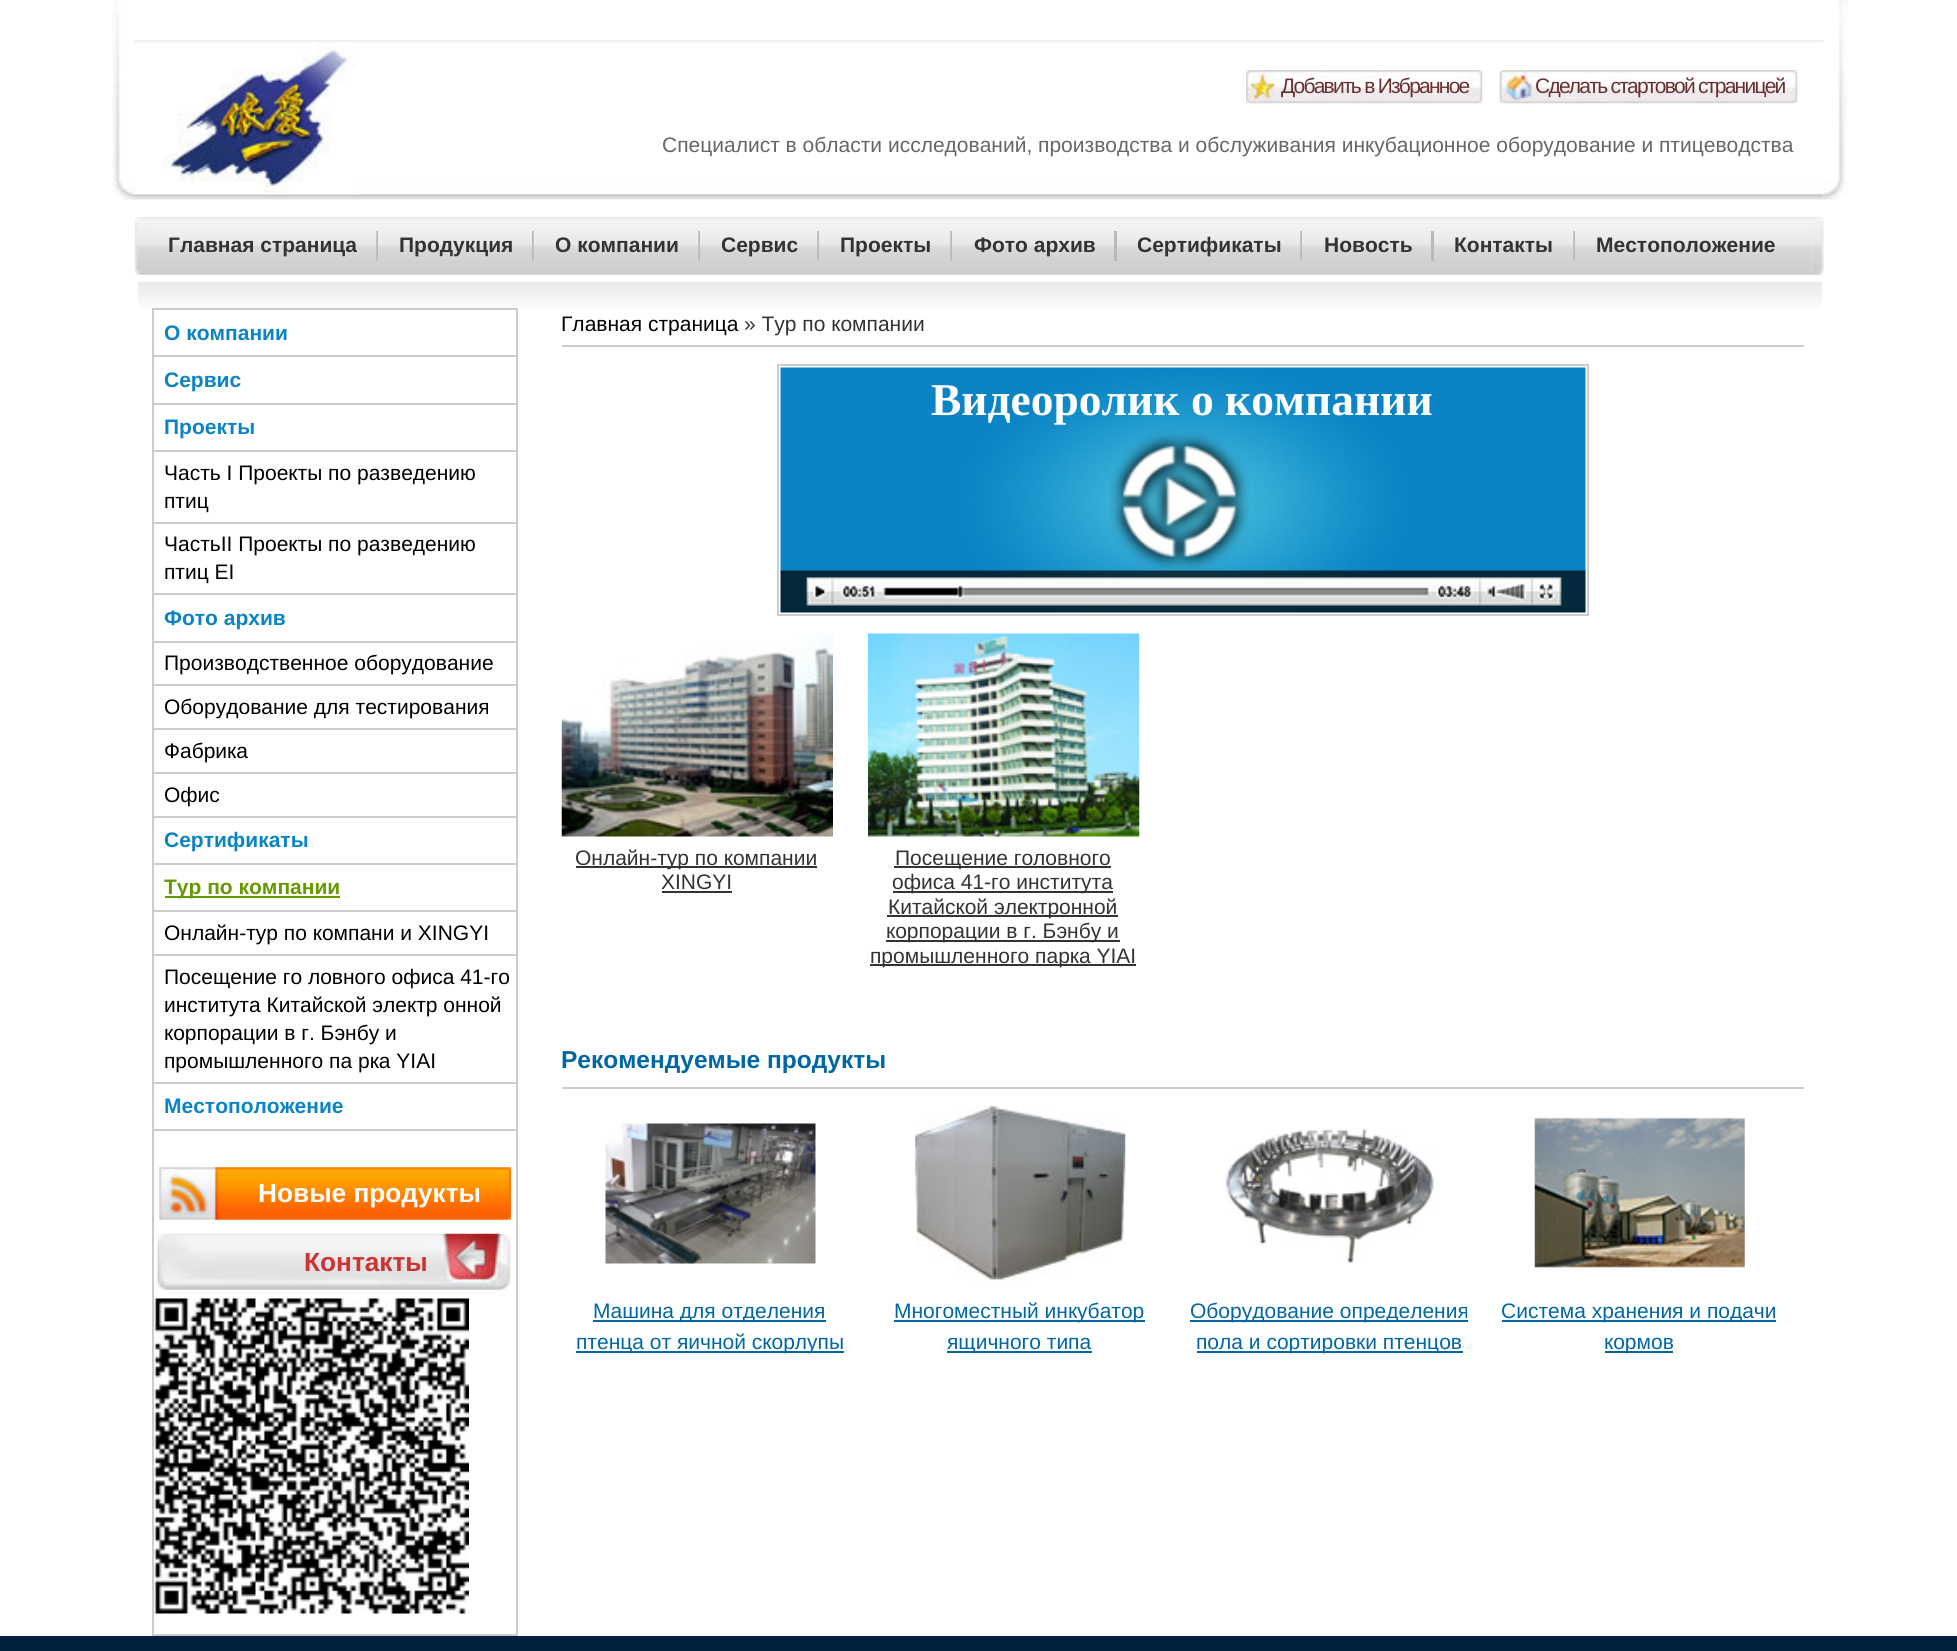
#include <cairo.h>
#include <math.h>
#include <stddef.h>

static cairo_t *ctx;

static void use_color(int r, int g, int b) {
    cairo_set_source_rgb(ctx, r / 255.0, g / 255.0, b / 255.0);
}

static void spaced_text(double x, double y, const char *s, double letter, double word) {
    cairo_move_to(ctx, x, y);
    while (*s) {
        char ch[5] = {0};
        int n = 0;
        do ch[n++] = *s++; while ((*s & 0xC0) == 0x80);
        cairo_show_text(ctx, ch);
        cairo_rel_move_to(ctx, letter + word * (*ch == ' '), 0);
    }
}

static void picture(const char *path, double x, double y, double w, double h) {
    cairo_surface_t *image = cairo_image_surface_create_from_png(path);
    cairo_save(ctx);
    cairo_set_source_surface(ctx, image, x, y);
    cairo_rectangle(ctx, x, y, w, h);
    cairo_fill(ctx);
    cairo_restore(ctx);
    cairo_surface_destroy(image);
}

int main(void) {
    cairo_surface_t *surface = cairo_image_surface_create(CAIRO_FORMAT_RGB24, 1957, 1651);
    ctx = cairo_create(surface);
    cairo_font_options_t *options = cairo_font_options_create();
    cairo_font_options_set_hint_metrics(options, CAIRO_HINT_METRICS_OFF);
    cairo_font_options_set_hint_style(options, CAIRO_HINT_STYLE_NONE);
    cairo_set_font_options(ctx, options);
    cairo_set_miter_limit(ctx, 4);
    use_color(255, 255, 255);
    cairo_paint(ctx);
    picture("img1.png", 112, 0, 23, 200);
    picture("img2.png", 134, 40, 1690, 160);
    picture("img3.png", 135, 43, 224, 152);
    picture("img4.png", 1246, 70, 237, 34);
    cairo_select_font_face(ctx, "Liberation Sans", CAIRO_FONT_SLANT_NORMAL, CAIRO_FONT_WEIGHT_NORMAL);
    cairo_set_font_size(ctx, 21);
    use_color(103, 49, 49);
    spaced_text(1281, 93, "Добавить в Избранное", -1.75, 0);
    picture("img5.png", 1499, 70, 299, 34);
    spaced_text(1535, 93, "Сделать стартовой страницей", -1.75, 0);
    use_color(102, 102, 102);
    cairo_move_to(ctx, 662, 152);
    cairo_show_text(ctx, "Специалист в области исследований, производства и обслуживания инкубационное оборудование и птицеводства");
    picture("img6.png", 1823, 0, 25, 200);
    picture("img7.png", 134, 217, 13, 58);
    picture("img8.png", 147, 217, 1665, 58);
    picture("img9.png", 376, 231, 2, 30);
    cairo_select_font_face(ctx, "Liberation Sans", CAIRO_FONT_SLANT_NORMAL, CAIRO_FONT_WEIGHT_BOLD);
    use_color(51, 51, 51);
    cairo_move_to(ctx, 168, 252);
    cairo_show_text(ctx, "Главная страница");
    picture("img10.png", 532, 231, 2, 30);
    cairo_move_to(ctx, 399, 252);
    cairo_show_text(ctx, "Продукция");
    picture("img9.png", 698, 231, 2, 30);
    cairo_move_to(ctx, 555, 252);
    cairo_show_text(ctx, "О компании");
    picture("img9.png", 817, 231, 2, 30);
    cairo_move_to(ctx, 721, 252);
    cairo_show_text(ctx, "Сервис");
    picture("img9.png", 950, 231, 2, 30);
    cairo_move_to(ctx, 840, 252);
    cairo_show_text(ctx, "Проекты");
    use_color(185, 185, 185);
    cairo_rectangle(ctx, 1114, 231, 3, 30);
    cairo_fill(ctx);
    use_color(51, 51, 51);
    cairo_move_to(ctx, 974, 252);
    cairo_show_text(ctx, "Фото архив");
    picture("img9.png", 1300, 231, 2, 30);
    cairo_move_to(ctx, 1137, 252);
    cairo_show_text(ctx, "Сертификаты");
    use_color(185, 185, 185);
    cairo_rectangle(ctx, 1431, 231, 3, 30);
    cairo_fill(ctx);
    use_color(51, 51, 51);
    cairo_move_to(ctx, 1324, 252);
    cairo_show_text(ctx, "Новость");
    picture("img9.png", 1573, 231, 2, 30);
    cairo_move_to(ctx, 1454, 252);
    cairo_show_text(ctx, "Контакты");
    cairo_move_to(ctx, 1596, 252);
    cairo_show_text(ctx, "Местоположение");
    picture("img11.png", 1811, 217, 13, 58);
    picture("img12.png", 138, 281, 1684, 27);
    cairo_rectangle(ctx, 153, 309, 364, 1326);
    use_color(204, 204, 204);
    cairo_stroke(ctx);
    cairo_rectangle(ctx, 154, 355, 362, 2);
    cairo_fill(ctx);
    use_color(10, 132, 197);
    cairo_move_to(ctx, 164, 340);
    cairo_show_text(ctx, "О компании");
    use_color(204, 204, 204);
    cairo_rectangle(ctx, 154, 403, 362, 2);
    cairo_fill(ctx);
    use_color(10, 132, 197);
    cairo_move_to(ctx, 164, 387);
    cairo_show_text(ctx, "Сервис");
    use_color(204, 204, 204);
    cairo_rectangle(ctx, 154, 450, 362, 2);
    cairo_fill(ctx);
    use_color(10, 132, 197);
    cairo_move_to(ctx, 164, 434);
    cairo_show_text(ctx, "Проекты");
    use_color(204, 204, 204);
    cairo_rectangle(ctx, 154, 522, 362, 2);
    cairo_fill(ctx);
    cairo_select_font_face(ctx, "Liberation Sans", CAIRO_FONT_SLANT_NORMAL, CAIRO_FONT_WEIGHT_NORMAL);
    use_color(0, 0, 0);
    cairo_move_to(ctx, 164, 480);
    cairo_show_text(ctx, "Часть I Проекты по разведению");
    cairo_move_to(ctx, 164, 508);
    cairo_show_text(ctx, "птиц");
    use_color(204, 204, 204);
    cairo_rectangle(ctx, 154, 593, 362, 2);
    cairo_fill(ctx);
    use_color(0, 0, 0);
    cairo_move_to(ctx, 164, 551);
    cairo_show_text(ctx, "ЧастьII Проекты по разведению");
    cairo_move_to(ctx, 164, 579);
    cairo_show_text(ctx, "птиц EI");
    use_color(204, 204, 204);
    cairo_rectangle(ctx, 154, 641, 362, 2);
    cairo_fill(ctx);
    cairo_select_font_face(ctx, "Liberation Sans", CAIRO_FONT_SLANT_NORMAL, CAIRO_FONT_WEIGHT_BOLD);
    use_color(10, 132, 197);
    cairo_move_to(ctx, 164, 625);
    cairo_show_text(ctx, "Фото архив");
    use_color(204, 204, 204);
    cairo_rectangle(ctx, 154, 684, 362, 2);
    cairo_fill(ctx);
    cairo_select_font_face(ctx, "Liberation Sans", CAIRO_FONT_SLANT_NORMAL, CAIRO_FONT_WEIGHT_NORMAL);
    use_color(0, 0, 0);
    cairo_move_to(ctx, 164, 670);
    cairo_show_text(ctx, "Производственное оборудование");
    use_color(204, 204, 204);
    cairo_rectangle(ctx, 154, 728, 362, 2);
    cairo_fill(ctx);
    use_color(0, 0, 0);
    cairo_move_to(ctx, 164, 714);
    cairo_show_text(ctx, "Оборудование для тестирования");
    use_color(204, 204, 204);
    cairo_rectangle(ctx, 154, 772, 362, 2);
    cairo_fill(ctx);
    use_color(0, 0, 0);
    cairo_move_to(ctx, 164, 758);
    cairo_show_text(ctx, "Фабрика");
    use_color(204, 204, 204);
    cairo_rectangle(ctx, 154, 816, 362, 2);
    cairo_fill(ctx);
    use_color(0, 0, 0);
    cairo_move_to(ctx, 164, 802);
    cairo_show_text(ctx, "Офис");
    use_color(204, 204, 204);
    cairo_rectangle(ctx, 154, 863, 362, 2);
    cairo_fill(ctx);
    cairo_select_font_face(ctx, "Liberation Sans", CAIRO_FONT_SLANT_NORMAL, CAIRO_FONT_WEIGHT_BOLD);
    use_color(10, 132, 197);
    cairo_move_to(ctx, 164, 847);
    cairo_show_text(ctx, "Сертификаты");
    use_color(204, 204, 204);
    cairo_rectangle(ctx, 154, 910, 362, 2);
    cairo_fill(ctx);
    use_color(102, 153, 0);
    cairo_rectangle(ctx, 165, 896, 175, 2);
    cairo_fill(ctx);
    cairo_move_to(ctx, 164, 894);
    cairo_show_text(ctx, "Тур по компании");
    use_color(204, 204, 204);
    cairo_rectangle(ctx, 154, 954, 362, 2);
    cairo_fill(ctx);
    cairo_select_font_face(ctx, "Liberation Sans", CAIRO_FONT_SLANT_NORMAL, CAIRO_FONT_WEIGHT_NORMAL);
    use_color(0, 0, 0);
    cairo_move_to(ctx, 164, 940);
    cairo_show_text(ctx, "Онлайн-тур по компани и XINGYI");
    use_color(204, 204, 204);
    cairo_rectangle(ctx, 154, 1082, 362, 2);
    cairo_fill(ctx);
    use_color(0, 0, 0);
    cairo_move_to(ctx, 164, 984);
    cairo_show_text(ctx, "Посещение го ловного офиса 41-го");
    cairo_move_to(ctx, 164, 1012);
    cairo_show_text(ctx, "института Китайской электр онной");
    cairo_move_to(ctx, 164, 1040);
    cairo_show_text(ctx, "корпорации в г. Бэнбу и");
    cairo_move_to(ctx, 164, 1068);
    cairo_show_text(ctx, "промышленного па рка YIAI");
    use_color(204, 204, 204);
    cairo_rectangle(ctx, 154, 1129, 362, 2);
    cairo_fill(ctx);
    cairo_select_font_face(ctx, "Liberation Sans", CAIRO_FONT_SLANT_NORMAL, CAIRO_FONT_WEIGHT_BOLD);
    use_color(10, 132, 197);
    cairo_move_to(ctx, 164, 1113);
    cairo_show_text(ctx, "Местоположение");
    picture("img13.png", 159, 1167, 352, 53);
    cairo_set_font_size(ctx, 26.25);
    use_color(254, 254, 254);
    cairo_move_to(ctx, 258, 1202);
    cairo_show_text(ctx, "Новые продукты");
    picture("img14.png", 157, 1233, 354, 57);
    use_color(204, 51, 51);
    cairo_move_to(ctx, 304, 1271);
    cairo_show_text(ctx, "Контакты");
    picture("img15.png", 154, 1298, 315, 316);
    use_color(204, 204, 204);
    cairo_rectangle(ctx, 562, 345, 1242, 2);
    cairo_fill(ctx);
    cairo_select_font_face(ctx, "Liberation Sans", CAIRO_FONT_SLANT_NORMAL, CAIRO_FONT_WEIGHT_NORMAL);
    cairo_set_font_size(ctx, 21);
    use_color(0, 0, 0);
    cairo_move_to(ctx, 561, 331);
    cairo_show_text(ctx, "Главная страница");
    use_color(51, 51, 51);
    cairo_move_to(ctx, 744, 331);
    cairo_show_text(ctx, "» Тур по компании");
    cairo_rectangle(ctx, 778, 365, 810, 250);
    use_color(204, 204, 204);
    cairo_stroke(ctx);
    picture("img16.png", 780, 367, 806, 246);
    cairo_select_font_face(ctx, "Liberation Serif", CAIRO_FONT_SLANT_NORMAL, CAIRO_FONT_WEIGHT_BOLD);
    cairo_set_font_size(ctx, 45.5);
    use_color(254, 254, 254);
    cairo_move_to(ctx, 931, 415);
    cairo_show_text(ctx, "Видеоролик о компании");
    picture("img17.png", 561, 633, 272, 204);
    use_color(51, 51, 51);
    cairo_rectangle(ctx, 576, 866, 241, 2);
    cairo_fill(ctx);
    cairo_select_font_face(ctx, "Liberation Sans", CAIRO_FONT_SLANT_NORMAL, CAIRO_FONT_WEIGHT_NORMAL);
    cairo_set_font_size(ctx, 21);
    cairo_move_to(ctx, 575, 865);
    cairo_show_text(ctx, "Онлайн-тур по компании");
    cairo_move_to(ctx, 661, 889);
    cairo_show_text(ctx, "XINGYI");
    cairo_rectangle(ctx, 662, 891, 70, 2);
    cairo_fill(ctx);
    picture("img18.png", 868, 633, 272, 204);
    cairo_rectangle(ctx, 894, 866, 217, 2);
    cairo_fill(ctx);
    cairo_move_to(ctx, 895, 865);
    cairo_show_text(ctx, "Посещение головного");
    cairo_rectangle(ctx, 893, 891, 220, 2);
    cairo_fill(ctx);
    cairo_move_to(ctx, 892, 889);
    cairo_show_text(ctx, "офиса 41-го института");
    cairo_rectangle(ctx, 887, 915, 231, 2);
    cairo_fill(ctx);
    cairo_move_to(ctx, 888, 914);
    cairo_show_text(ctx, "Китайской электронной");
    cairo_rectangle(ctx, 886, 940, 234, 2);
    cairo_fill(ctx);
    cairo_move_to(ctx, 886, 938);
    cairo_show_text(ctx, "корпорации в г. Бэнбу и");
    cairo_rectangle(ctx, 870, 964, 266, 2);
    cairo_fill(ctx);
    cairo_move_to(ctx, 870, 963);
    cairo_show_text(ctx, "промышленного парка YIAI");
    use_color(204, 204, 204);
    cairo_rectangle(ctx, 562, 1087, 1242, 2);
    cairo_fill(ctx);
    cairo_select_font_face(ctx, "Liberation Sans", CAIRO_FONT_SLANT_NORMAL, CAIRO_FONT_WEIGHT_BOLD);
    cairo_set_font_size(ctx, 24.5);
    use_color(0, 103, 164);
    cairo_move_to(ctx, 561, 1068);
    cairo_show_text(ctx, "Рекомендуемые продукты");
    picture("img19.png", 605, 1123, 211, 141);
    cairo_rectangle(ctx, 593, 1320, 233, 2);
    cairo_fill(ctx);
    cairo_select_font_face(ctx, "Liberation Sans", CAIRO_FONT_SLANT_NORMAL, CAIRO_FONT_WEIGHT_NORMAL);
    cairo_set_font_size(ctx, 21);
    cairo_move_to(ctx, 593, 1318);
    cairo_show_text(ctx, "Машина для отделения");
    cairo_rectangle(ctx, 576, 1351, 268, 2);
    cairo_fill(ctx);
    cairo_move_to(ctx, 576, 1349);
    cairo_show_text(ctx, "птенца от яичной скорлупы");
    picture("img20.png", 915, 1106, 211, 175);
    cairo_rectangle(ctx, 894, 1320, 251, 2);
    cairo_fill(ctx);
    cairo_move_to(ctx, 894, 1318);
    cairo_show_text(ctx, "Многоместный инкубатор");
    cairo_rectangle(ctx, 947, 1351, 145, 2);
    cairo_fill(ctx);
    cairo_move_to(ctx, 947, 1349);
    cairo_show_text(ctx, "ящичного типа");
    picture("img21.png", 1225, 1128, 209, 136);
    cairo_rectangle(ctx, 1190, 1320, 278, 2);
    cairo_fill(ctx);
    cairo_move_to(ctx, 1190, 1318);
    cairo_show_text(ctx, "Оборудование определения");
    cairo_rectangle(ctx, 1197, 1351, 266, 2);
    cairo_fill(ctx);
    cairo_move_to(ctx, 1196, 1349);
    cairo_show_text(ctx, "пола и сортировки птенцов");
    picture("img22.png", 1534, 1117, 211, 151);
    cairo_rectangle(ctx, 1502, 1320, 274, 2);
    cairo_fill(ctx);
    cairo_move_to(ctx, 1501, 1318);
    cairo_show_text(ctx, "Система хранения и подачи");
    cairo_rectangle(ctx, 1605, 1351, 68, 2);
    cairo_fill(ctx);
    cairo_move_to(ctx, 1604, 1349);
    cairo_show_text(ctx, "кормов");
    use_color(0, 33, 61);
    cairo_rectangle(ctx, 0, 1636, 1957, 15);
    cairo_fill(ctx);
    cairo_surface_write_to_png(surface, "result.png");
    cairo_font_options_destroy(options);
    cairo_destroy(ctx);
    cairo_surface_destroy(surface);
    return 0;
}
